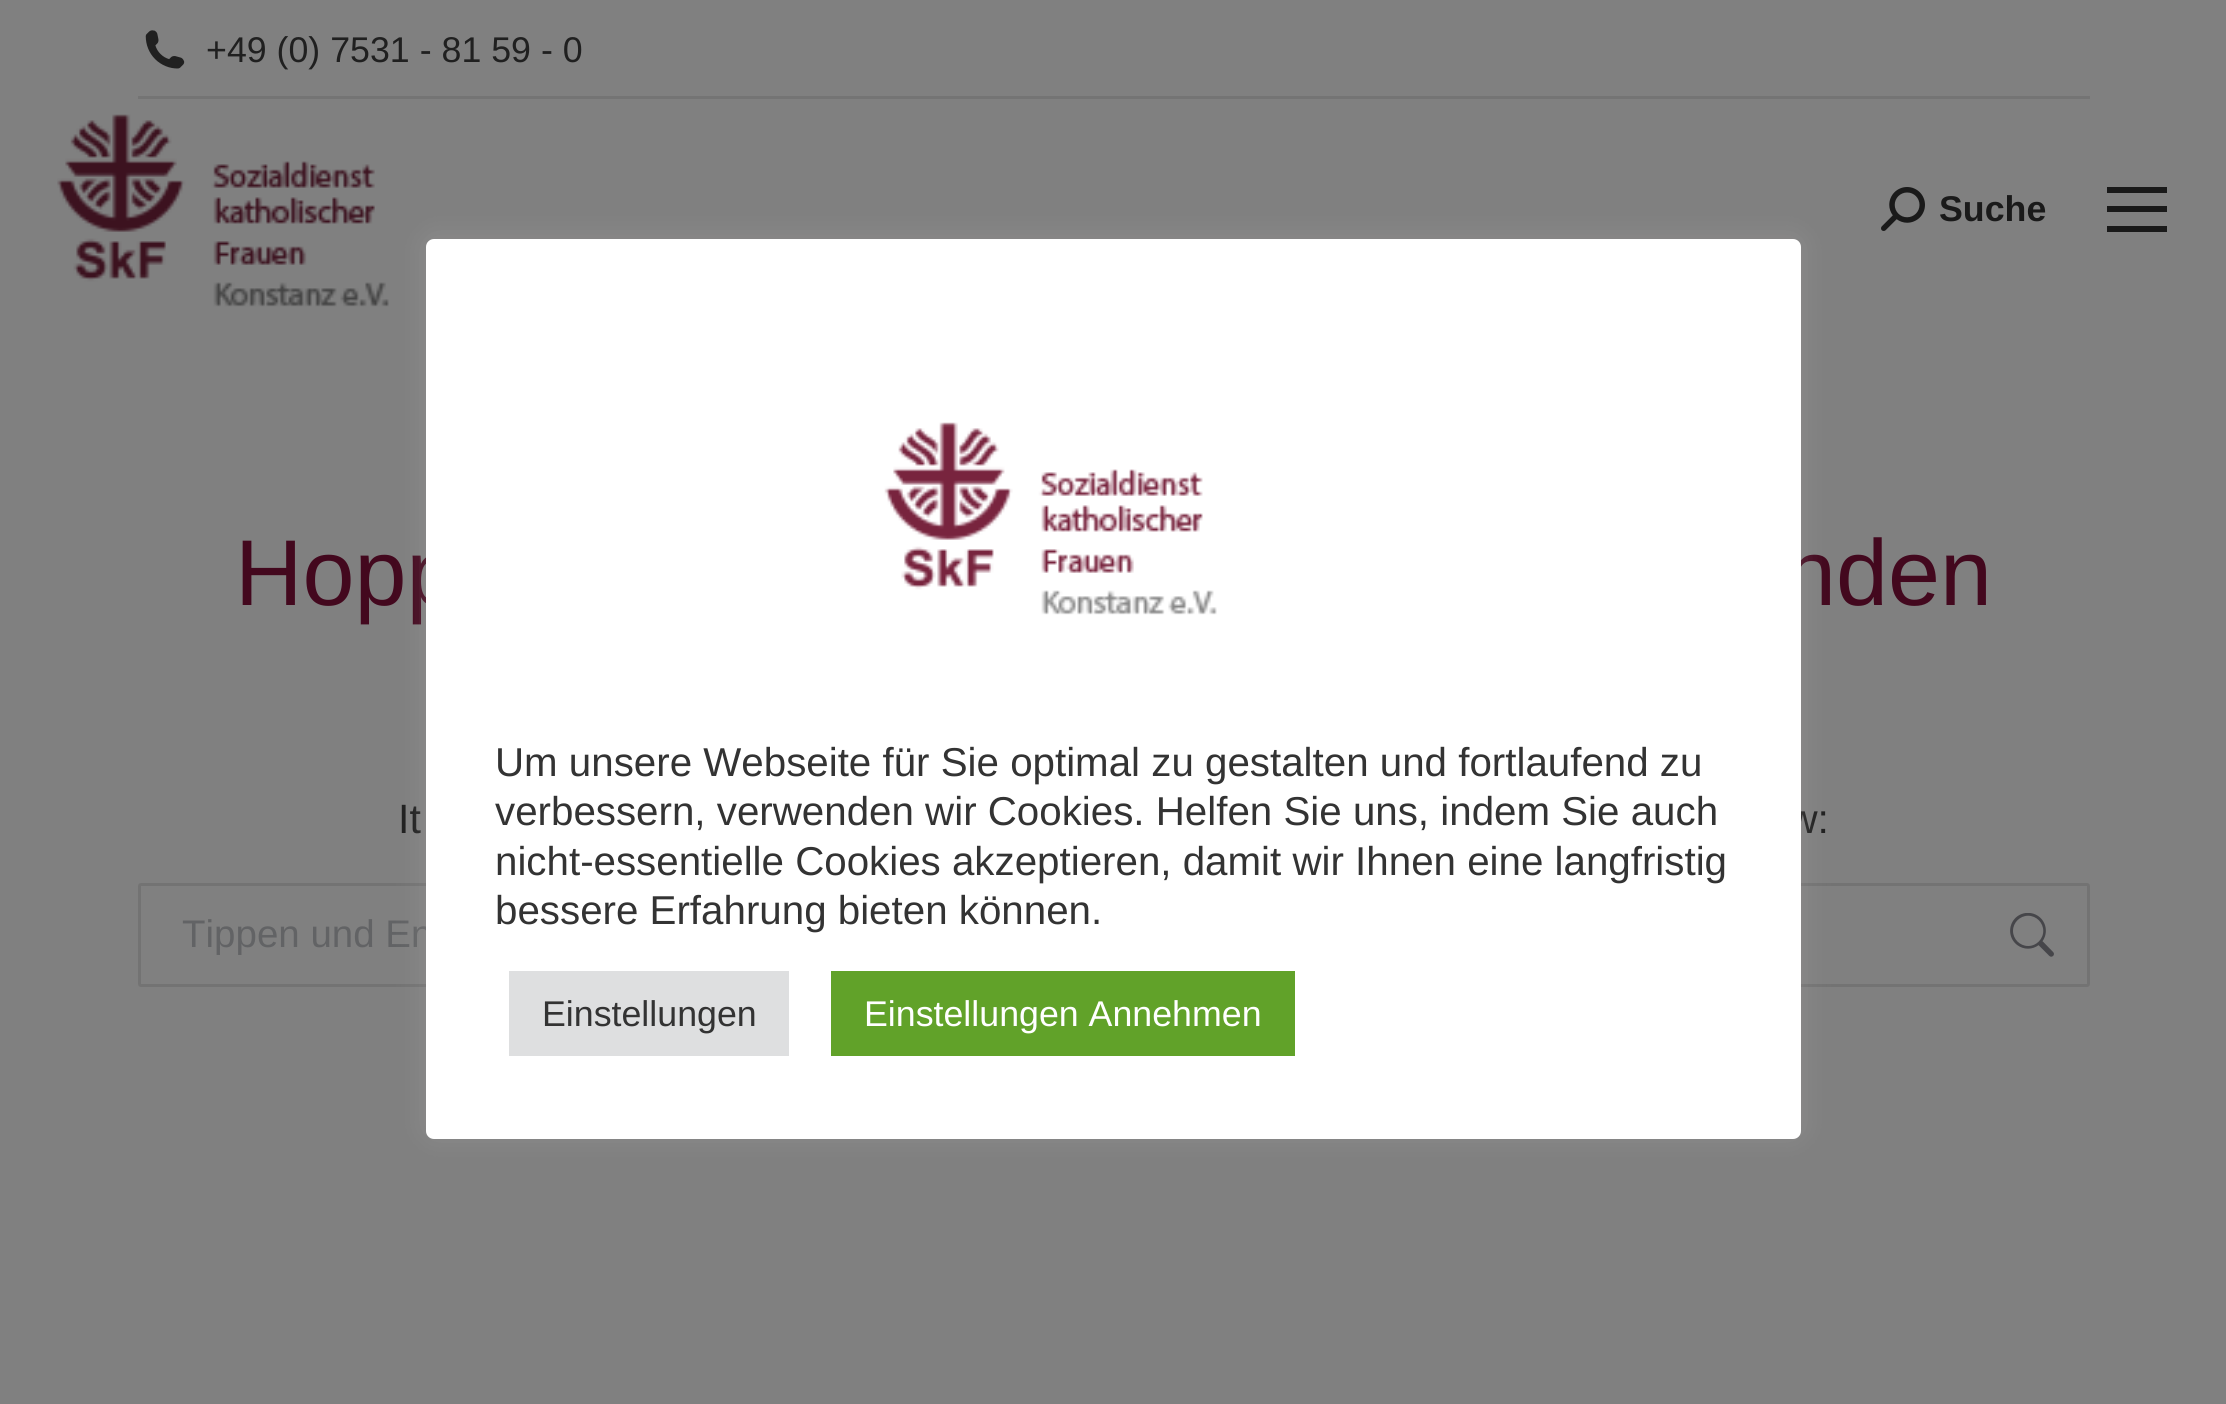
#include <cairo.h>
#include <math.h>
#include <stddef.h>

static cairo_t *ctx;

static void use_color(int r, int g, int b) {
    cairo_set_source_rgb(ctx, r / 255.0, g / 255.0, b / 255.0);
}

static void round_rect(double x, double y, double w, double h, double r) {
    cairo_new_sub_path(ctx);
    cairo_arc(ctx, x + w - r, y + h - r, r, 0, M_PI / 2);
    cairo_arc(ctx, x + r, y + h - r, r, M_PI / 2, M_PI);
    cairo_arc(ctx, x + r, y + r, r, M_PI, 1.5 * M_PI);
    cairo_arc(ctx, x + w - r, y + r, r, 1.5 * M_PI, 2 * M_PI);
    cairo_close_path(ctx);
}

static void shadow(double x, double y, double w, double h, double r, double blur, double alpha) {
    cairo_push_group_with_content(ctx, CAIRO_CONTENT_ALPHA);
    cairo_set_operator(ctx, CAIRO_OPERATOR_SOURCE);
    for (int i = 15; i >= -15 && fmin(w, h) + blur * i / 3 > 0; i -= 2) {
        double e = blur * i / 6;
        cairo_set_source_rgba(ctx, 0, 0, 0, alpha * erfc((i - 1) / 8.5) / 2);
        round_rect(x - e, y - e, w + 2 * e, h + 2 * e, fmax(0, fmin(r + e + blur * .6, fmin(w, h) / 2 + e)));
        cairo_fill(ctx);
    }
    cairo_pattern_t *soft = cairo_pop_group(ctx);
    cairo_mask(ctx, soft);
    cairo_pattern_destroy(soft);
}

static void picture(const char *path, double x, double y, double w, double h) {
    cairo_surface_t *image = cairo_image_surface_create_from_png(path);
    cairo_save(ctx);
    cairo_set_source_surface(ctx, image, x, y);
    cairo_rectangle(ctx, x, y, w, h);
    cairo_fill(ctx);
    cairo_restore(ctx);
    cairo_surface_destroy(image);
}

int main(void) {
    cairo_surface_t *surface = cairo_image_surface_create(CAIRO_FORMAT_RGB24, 2226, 1404);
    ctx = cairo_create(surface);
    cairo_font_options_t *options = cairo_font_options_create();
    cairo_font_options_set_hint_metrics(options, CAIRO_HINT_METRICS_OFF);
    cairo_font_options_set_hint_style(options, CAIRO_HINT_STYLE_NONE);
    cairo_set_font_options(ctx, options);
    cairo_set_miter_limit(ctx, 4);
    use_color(128, 128, 128);
    cairo_paint(ctx);
    picture("img1.png", 145, 30, 40, 39);
    cairo_select_font_face(ctx, "Liberation Sans", CAIRO_FONT_SLANT_NORMAL, CAIRO_FONT_WEIGHT_NORMAL);
    cairo_set_font_size(ctx, 35.75);
    use_color(32, 32, 32);
    cairo_move_to(ctx, 206, 62);
    cairo_show_text(ctx, "+49 (0) 7531 - 81 59 - 0");
    use_color(116, 116, 116);
    cairo_rectangle(ctx, 138, 96, 1952, 3);
    cairo_fill(ctx);
    picture("img2.png", 57, 114, 332, 193);
    picture("img3.png", 1881, 187, 44, 44);
    cairo_select_font_face(ctx, "Liberation Sans", CAIRO_FONT_SLANT_NORMAL, CAIRO_FONT_WEIGHT_BOLD);
    use_color(26, 26, 26);
    cairo_move_to(ctx, 1939, 221);
    cairo_show_text(ctx, "Suche");
    cairo_rectangle(ctx, 2107, 187, 60, 6);
    cairo_fill(ctx);
    cairo_rectangle(ctx, 2107, 206, 60, 6);
    cairo_fill(ctx);
    cairo_rectangle(ctx, 2107, 226, 60, 6);
    cairo_fill(ctx);
    cairo_select_font_face(ctx, "Liberation Sans", CAIRO_FONT_SLANT_NORMAL, CAIRO_FONT_WEIGHT_NORMAL);
    cairo_set_font_size(ctx, 93.5);
    use_color(67, 8, 30);
    cairo_move_to(ctx, 235, 605);
    cairo_show_text(ctx, "Hopp");
    cairo_move_to(ctx, 1784, 605);
    cairo_show_text(ctx, "nden");
    cairo_set_font_size(ctx, 41);
    use_color(32, 32, 32);
    cairo_move_to(ctx, 398, 833);
    cairo_show_text(ctx, "It");
    cairo_move_to(ctx, 1788, 833);
    cairo_show_text(ctx, "w:");
    round_rect(139.5, 884.5, 1949, 101, 1.5);
    use_color(115, 115, 115);
    cairo_set_line_width(ctx, 3);
    cairo_stroke(ctx);
    cairo_set_font_size(ctx, 38.5);
    use_color(98, 99, 101);
    cairo_move_to(ctx, 182, 947);
    cairo_show_text(ctx, "Tippen und En");
    picture("img4.png", 2010, 913, 44, 44);
    use_color(172, 171, 171);
    shadow(426, 237, 1375, 899, 8, 14, 0.3);
    use_color(255, 255, 255);
    round_rect(426, 239, 1375, 900, 8);
    cairo_fill(ctx);
    picture("img5.png", 884, 422, 333, 193);
    cairo_set_font_size(ctx, 40.3);
    use_color(51, 51, 51);
    cairo_move_to(ctx, 495, 776);
    cairo_show_text(ctx, "Um unsere Webseite für Sie optimal zu gestalten und fortlaufend zu");
    cairo_move_to(ctx, 495, 825);
    cairo_show_text(ctx, "verbessern, verwenden wir Cookies. Helfen Sie uns, indem Sie auch");
    cairo_move_to(ctx, 495, 875);
    cairo_show_text(ctx, "nicht-essentielle Cookies akzeptieren, damit wir Ihnen eine langfristig");
    cairo_move_to(ctx, 495, 924);
    cairo_show_text(ctx, "bessere Erfahrung bieten können.");
    use_color(222, 223, 224);
    cairo_rectangle(ctx, 509, 971, 280, 85);
    cairo_fill(ctx);
    cairo_set_font_size(ctx, 35.75);
    use_color(51, 51, 51);
    cairo_move_to(ctx, 542, 1026);
    cairo_show_text(ctx, "Einstellungen");
    use_color(97, 162, 41);
    cairo_rectangle(ctx, 831, 971, 464, 85);
    cairo_fill(ctx);
    use_color(255, 255, 255);
    cairo_move_to(ctx, 864, 1026);
    cairo_show_text(ctx, "Einstellungen Annehmen");
    cairo_surface_write_to_png(surface, "result.png");
    cairo_font_options_destroy(options);
    cairo_destroy(ctx);
    cairo_surface_destroy(surface);
    return 0;
}
